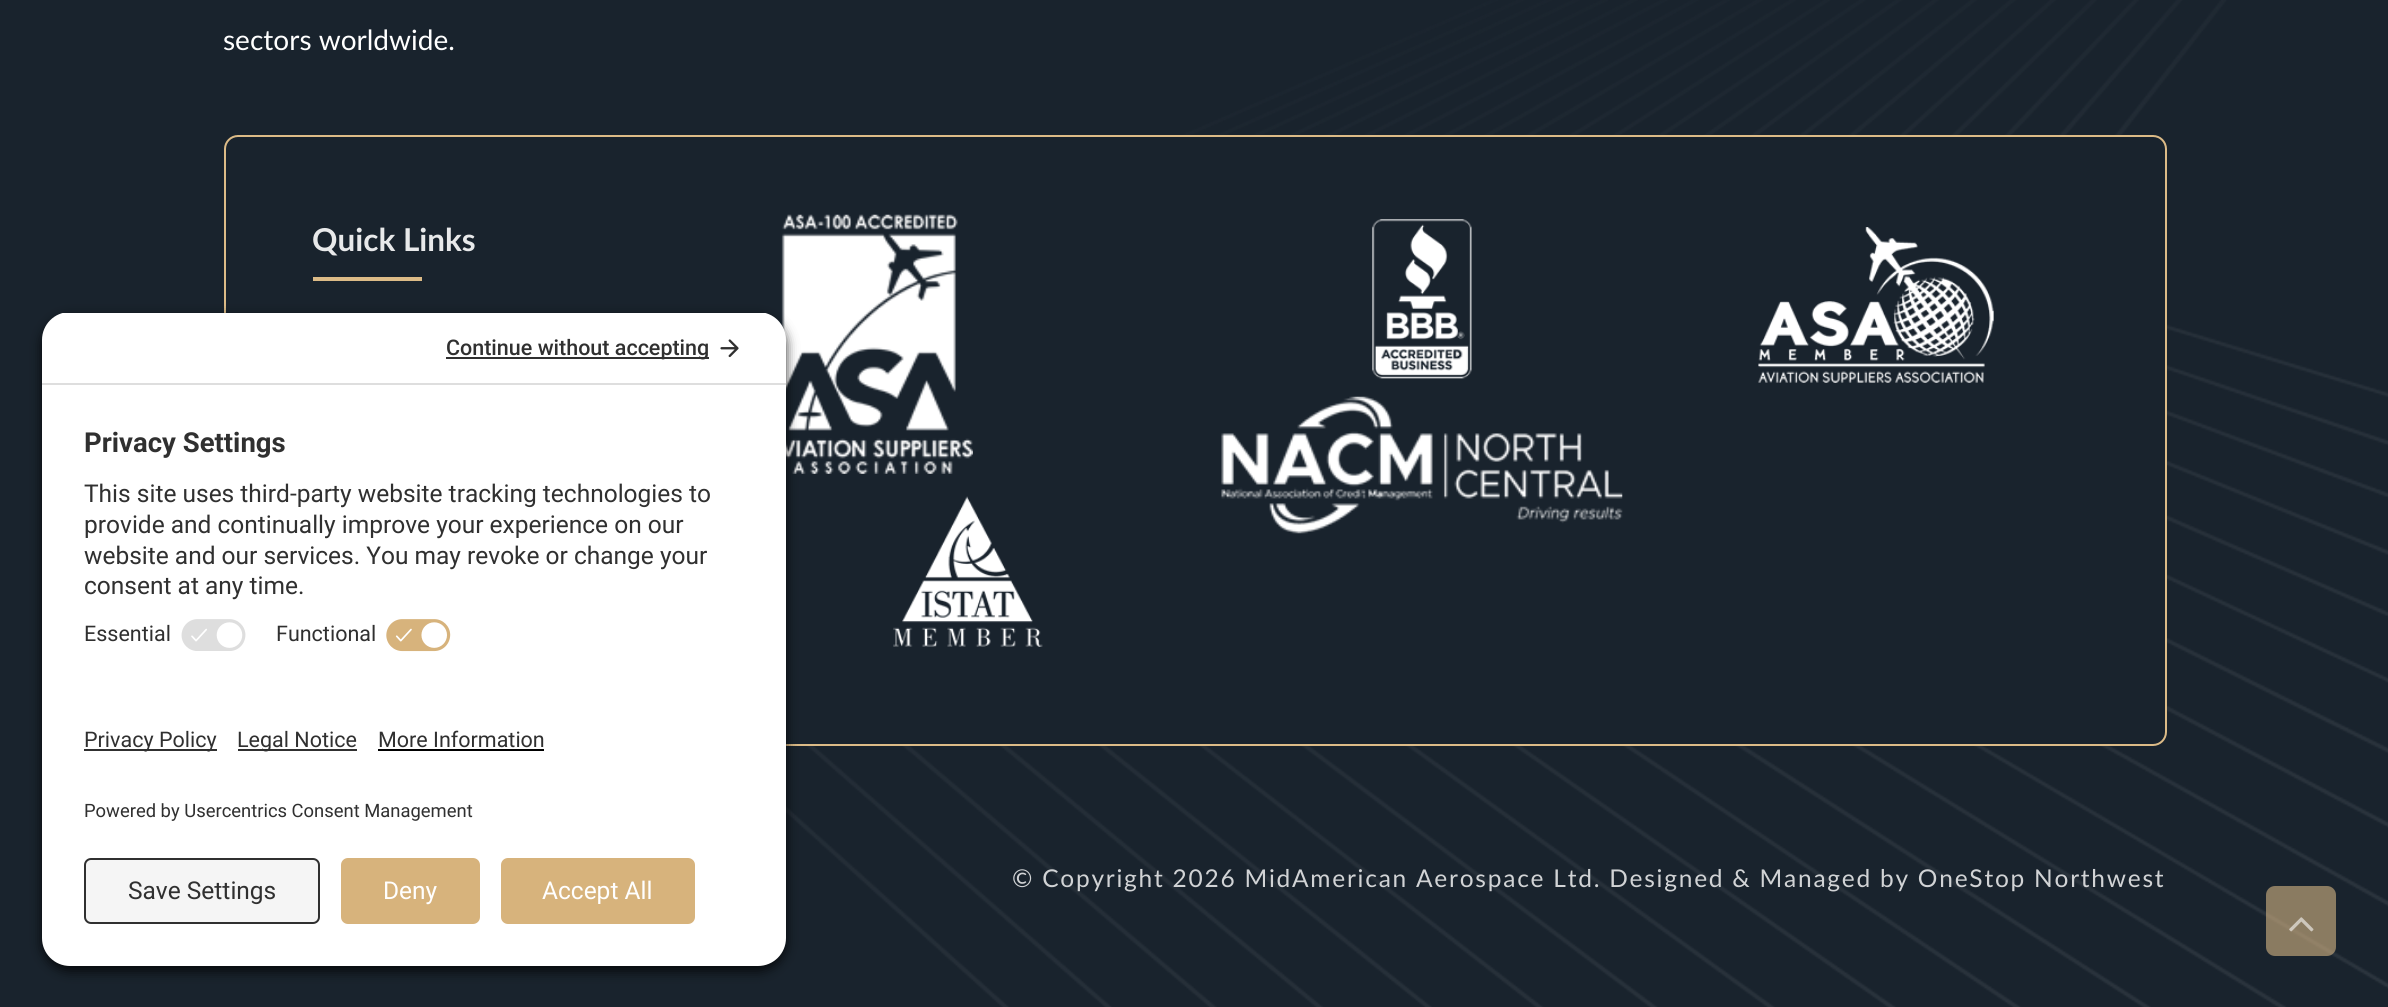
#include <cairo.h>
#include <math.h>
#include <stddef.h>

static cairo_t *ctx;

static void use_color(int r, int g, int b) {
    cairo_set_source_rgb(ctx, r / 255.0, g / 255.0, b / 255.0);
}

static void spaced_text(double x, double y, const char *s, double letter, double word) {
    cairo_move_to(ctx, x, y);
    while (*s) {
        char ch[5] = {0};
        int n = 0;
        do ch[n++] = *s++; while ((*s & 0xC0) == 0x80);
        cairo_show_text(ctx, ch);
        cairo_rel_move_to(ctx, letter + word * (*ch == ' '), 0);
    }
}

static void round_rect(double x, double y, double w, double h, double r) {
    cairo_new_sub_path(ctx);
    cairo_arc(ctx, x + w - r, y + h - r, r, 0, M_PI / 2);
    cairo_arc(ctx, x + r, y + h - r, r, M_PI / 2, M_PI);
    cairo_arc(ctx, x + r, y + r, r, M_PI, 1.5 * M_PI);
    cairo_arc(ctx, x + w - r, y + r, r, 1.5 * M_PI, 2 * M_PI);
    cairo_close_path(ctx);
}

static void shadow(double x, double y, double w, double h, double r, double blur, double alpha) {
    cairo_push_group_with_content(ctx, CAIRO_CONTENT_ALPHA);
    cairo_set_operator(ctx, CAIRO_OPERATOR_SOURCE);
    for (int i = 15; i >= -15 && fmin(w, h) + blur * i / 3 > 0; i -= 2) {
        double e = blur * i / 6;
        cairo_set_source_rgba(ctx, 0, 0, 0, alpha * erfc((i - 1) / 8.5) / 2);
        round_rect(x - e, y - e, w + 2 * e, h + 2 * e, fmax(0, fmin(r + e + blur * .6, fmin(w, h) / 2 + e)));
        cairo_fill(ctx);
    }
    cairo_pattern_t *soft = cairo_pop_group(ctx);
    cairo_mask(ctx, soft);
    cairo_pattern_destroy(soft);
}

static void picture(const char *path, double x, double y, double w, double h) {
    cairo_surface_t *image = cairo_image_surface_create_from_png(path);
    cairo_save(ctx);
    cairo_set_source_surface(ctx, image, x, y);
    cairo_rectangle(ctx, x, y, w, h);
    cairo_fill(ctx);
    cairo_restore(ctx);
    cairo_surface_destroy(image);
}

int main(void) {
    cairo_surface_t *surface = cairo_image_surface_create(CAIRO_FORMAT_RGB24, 2388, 1007);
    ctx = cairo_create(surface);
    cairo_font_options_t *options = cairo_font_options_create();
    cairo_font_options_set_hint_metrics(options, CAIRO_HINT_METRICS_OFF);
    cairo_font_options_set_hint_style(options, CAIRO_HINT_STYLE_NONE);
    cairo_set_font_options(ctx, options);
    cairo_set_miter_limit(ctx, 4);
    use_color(25, 35, 45);
    cairo_paint(ctx);
    picture("img1.png", 786, 0, 1602, 1007);
    cairo_select_font_face(ctx, "Lato", CAIRO_FONT_SLANT_NORMAL, CAIRO_FONT_WEIGHT_NORMAL);
    cairo_set_font_size(ctx, 28);
    use_color(255, 255, 255);
    cairo_move_to(ctx, 223, 50);
    cairo_show_text(ctx, "sectors worldwide.");
    use_color(25, 35, 45);
    round_rect(225, 136, 1941, 609, 13);
    cairo_fill_preserve(ctx);
    use_color(220, 187, 135);
    cairo_stroke(ctx);
    cairo_select_font_face(ctx, "Lato", CAIRO_FONT_SLANT_NORMAL, CAIRO_FONT_WEIGHT_BOLD);
    cairo_set_font_size(ctx, 31.5);
    use_color(232, 233, 234);
    cairo_move_to(ctx, 312, 251);
    cairo_show_text(ctx, "Quick Links");
    use_color(220, 187, 135);
    cairo_rectangle(ctx, 313, 277, 109, 4);
    cairo_fill(ctx);
    picture("img2.png", 781, 214, 192, 260);
    picture("img3.png", 893, 496, 150, 151);
    picture("img4.png", 1372, 219, 100, 160);
    picture("img5.png", 1221, 396, 402, 138);
    picture("img6.png", 1758, 227, 236, 156);
    cairo_select_font_face(ctx, "Lato", CAIRO_FONT_SLANT_NORMAL, CAIRO_FONT_WEIGHT_NORMAL);
    cairo_set_font_size(ctx, 24.5);
    use_color(209, 211, 213);
    spaced_text(1012, 887, "© Copyright 2026 MidAmerican Aerospace Ltd. Designed & Managed by OneStop Northwest", 1.75, 0);
    use_color(0, 0, 0);
    shadow(42, 317, 744, 654, 28, 6, 0.8);
    cairo_save(ctx);
    cairo_new_path(ctx);
    cairo_move_to(ctx, 70, 312);
    cairo_line_to(ctx, 758, 312);
    cairo_curve_to(ctx, 773.5, 312, 786, 324.5, 786, 340);
    cairo_line_to(ctx, 786, 679);
    cairo_line_to(ctx, 42, 679);
    cairo_line_to(ctx, 42, 340);
    cairo_curve_to(ctx, 42, 324.5, 54.5, 312, 70, 312);
    cairo_close_path(ctx);
    cairo_clip(ctx);
    use_color(255, 255, 255);
    cairo_rectangle(ctx, 42, 313, 744, 70);
    cairo_fill(ctx);
    cairo_restore(ctx);
    use_color(222, 222, 222);
    cairo_rectangle(ctx, 42, 383, 744, 2);
    cairo_fill(ctx);
    use_color(48, 48, 48);
    cairo_rectangle(ctx, 446, 357, 263, 2);
    cairo_fill(ctx);
    cairo_select_font_face(ctx, "Roboto Medium", CAIRO_FONT_SLANT_NORMAL, CAIRO_FONT_WEIGHT_NORMAL);
    cairo_set_font_size(ctx, 21.5);
    cairo_move_to(ctx, 446, 355);
    cairo_show_text(ctx, "Continue without accepting");
    picture("img7.png", 720, 339, 19, 19);
    use_color(255, 255, 255);
    cairo_rectangle(ctx, 42, 385, 744, 294);
    cairo_fill(ctx);
    cairo_select_font_face(ctx, "Roboto", CAIRO_FONT_SLANT_NORMAL, CAIRO_FONT_WEIGHT_BOLD);
    cairo_set_font_size(ctx, 27.5);
    use_color(48, 48, 48);
    cairo_move_to(ctx, 84, 452);
    cairo_show_text(ctx, "Privacy Settings");
    cairo_select_font_face(ctx, "Roboto", CAIRO_FONT_SLANT_NORMAL, CAIRO_FONT_WEIGHT_NORMAL);
    cairo_set_font_size(ctx, 24.5);
    cairo_move_to(ctx, 84, 502);
    cairo_show_text(ctx, "This site uses third-party website tracking technologies to");
    cairo_move_to(ctx, 84, 533);
    cairo_show_text(ctx, "provide and continually improve your experience on our");
    cairo_move_to(ctx, 84, 564);
    cairo_show_text(ctx, "website and our services. You may revoke or change your");
    cairo_move_to(ctx, 84, 594);
    cairo_show_text(ctx, "consent at any time.");
    cairo_set_font_size(ctx, 21.5);
    cairo_move_to(ctx, 84, 641);
    cairo_show_text(ctx, "Essential");
    picture("img8.png", 181, 619, 65, 32);
    cairo_move_to(ctx, 276, 641);
    cairo_show_text(ctx, "Functional");
    picture("img9.png", 386, 619, 65, 33);
    use_color(255, 255, 255);
    cairo_new_path(ctx);
    cairo_move_to(ctx, 42, 679);
    cairo_line_to(ctx, 786, 679);
    cairo_line_to(ctx, 786, 938);
    cairo_curve_to(ctx, 786, 953.5, 773.5, 966, 758, 966);
    cairo_line_to(ctx, 70, 966);
    cairo_curve_to(ctx, 54.5, 966, 42, 953.5, 42, 938);
    cairo_close_path(ctx);
    cairo_fill(ctx);
    use_color(48, 48, 48);
    cairo_rectangle(ctx, 84, 749, 133, 2);
    cairo_fill(ctx);
    cairo_move_to(ctx, 84, 747);
    cairo_show_text(ctx, "Privacy Policy");
    cairo_rectangle(ctx, 238, 749, 119, 2);
    cairo_fill(ctx);
    cairo_move_to(ctx, 237, 747);
    cairo_show_text(ctx, "Legal Notice");
    cairo_move_to(ctx, 378, 747);
    cairo_show_text(ctx, "More Information");
    use_color(0, 0, 0);
    cairo_rectangle(ctx, 378, 749, 166, 2);
    cairo_fill(ctx);
    cairo_set_font_size(ctx, 18.4);
    use_color(48, 48, 48);
    cairo_move_to(ctx, 84, 817);
    cairo_show_text(ctx, "Powered by Usercentrics Consent Management");
    use_color(245, 245, 245);
    round_rect(85, 859, 234, 64, 6);
    cairo_fill_preserve(ctx);
    use_color(48, 48, 48);
    cairo_stroke(ctx);
    cairo_set_font_size(ctx, 24.5);
    cairo_move_to(ctx, 128, 899);
    cairo_show_text(ctx, "Save Settings");
    use_color(215, 179, 124);
    round_rect(341, 858, 139, 66, 7);
    cairo_fill(ctx);
    use_color(255, 255, 255);
    cairo_move_to(ctx, 383, 899);
    cairo_show_text(ctx, "Deny");
    use_color(215, 179, 124);
    round_rect(501, 858, 194, 66, 7);
    cairo_fill(ctx);
    use_color(255, 255, 255);
    cairo_move_to(ctx, 542, 899);
    cairo_show_text(ctx, "Accept All");
    cairo_set_source_rgba(ctx, 0.863, 0.733, 0.529, 0.58);
    round_rect(2266, 886, 70, 70, 9);
    cairo_fill(ctx);
    picture("img10.png", 2289, 917, 25, 15);
    cairo_surface_write_to_png(surface, "result.png");
    cairo_font_options_destroy(options);
    cairo_destroy(ctx);
    cairo_surface_destroy(surface);
    return 0;
}
